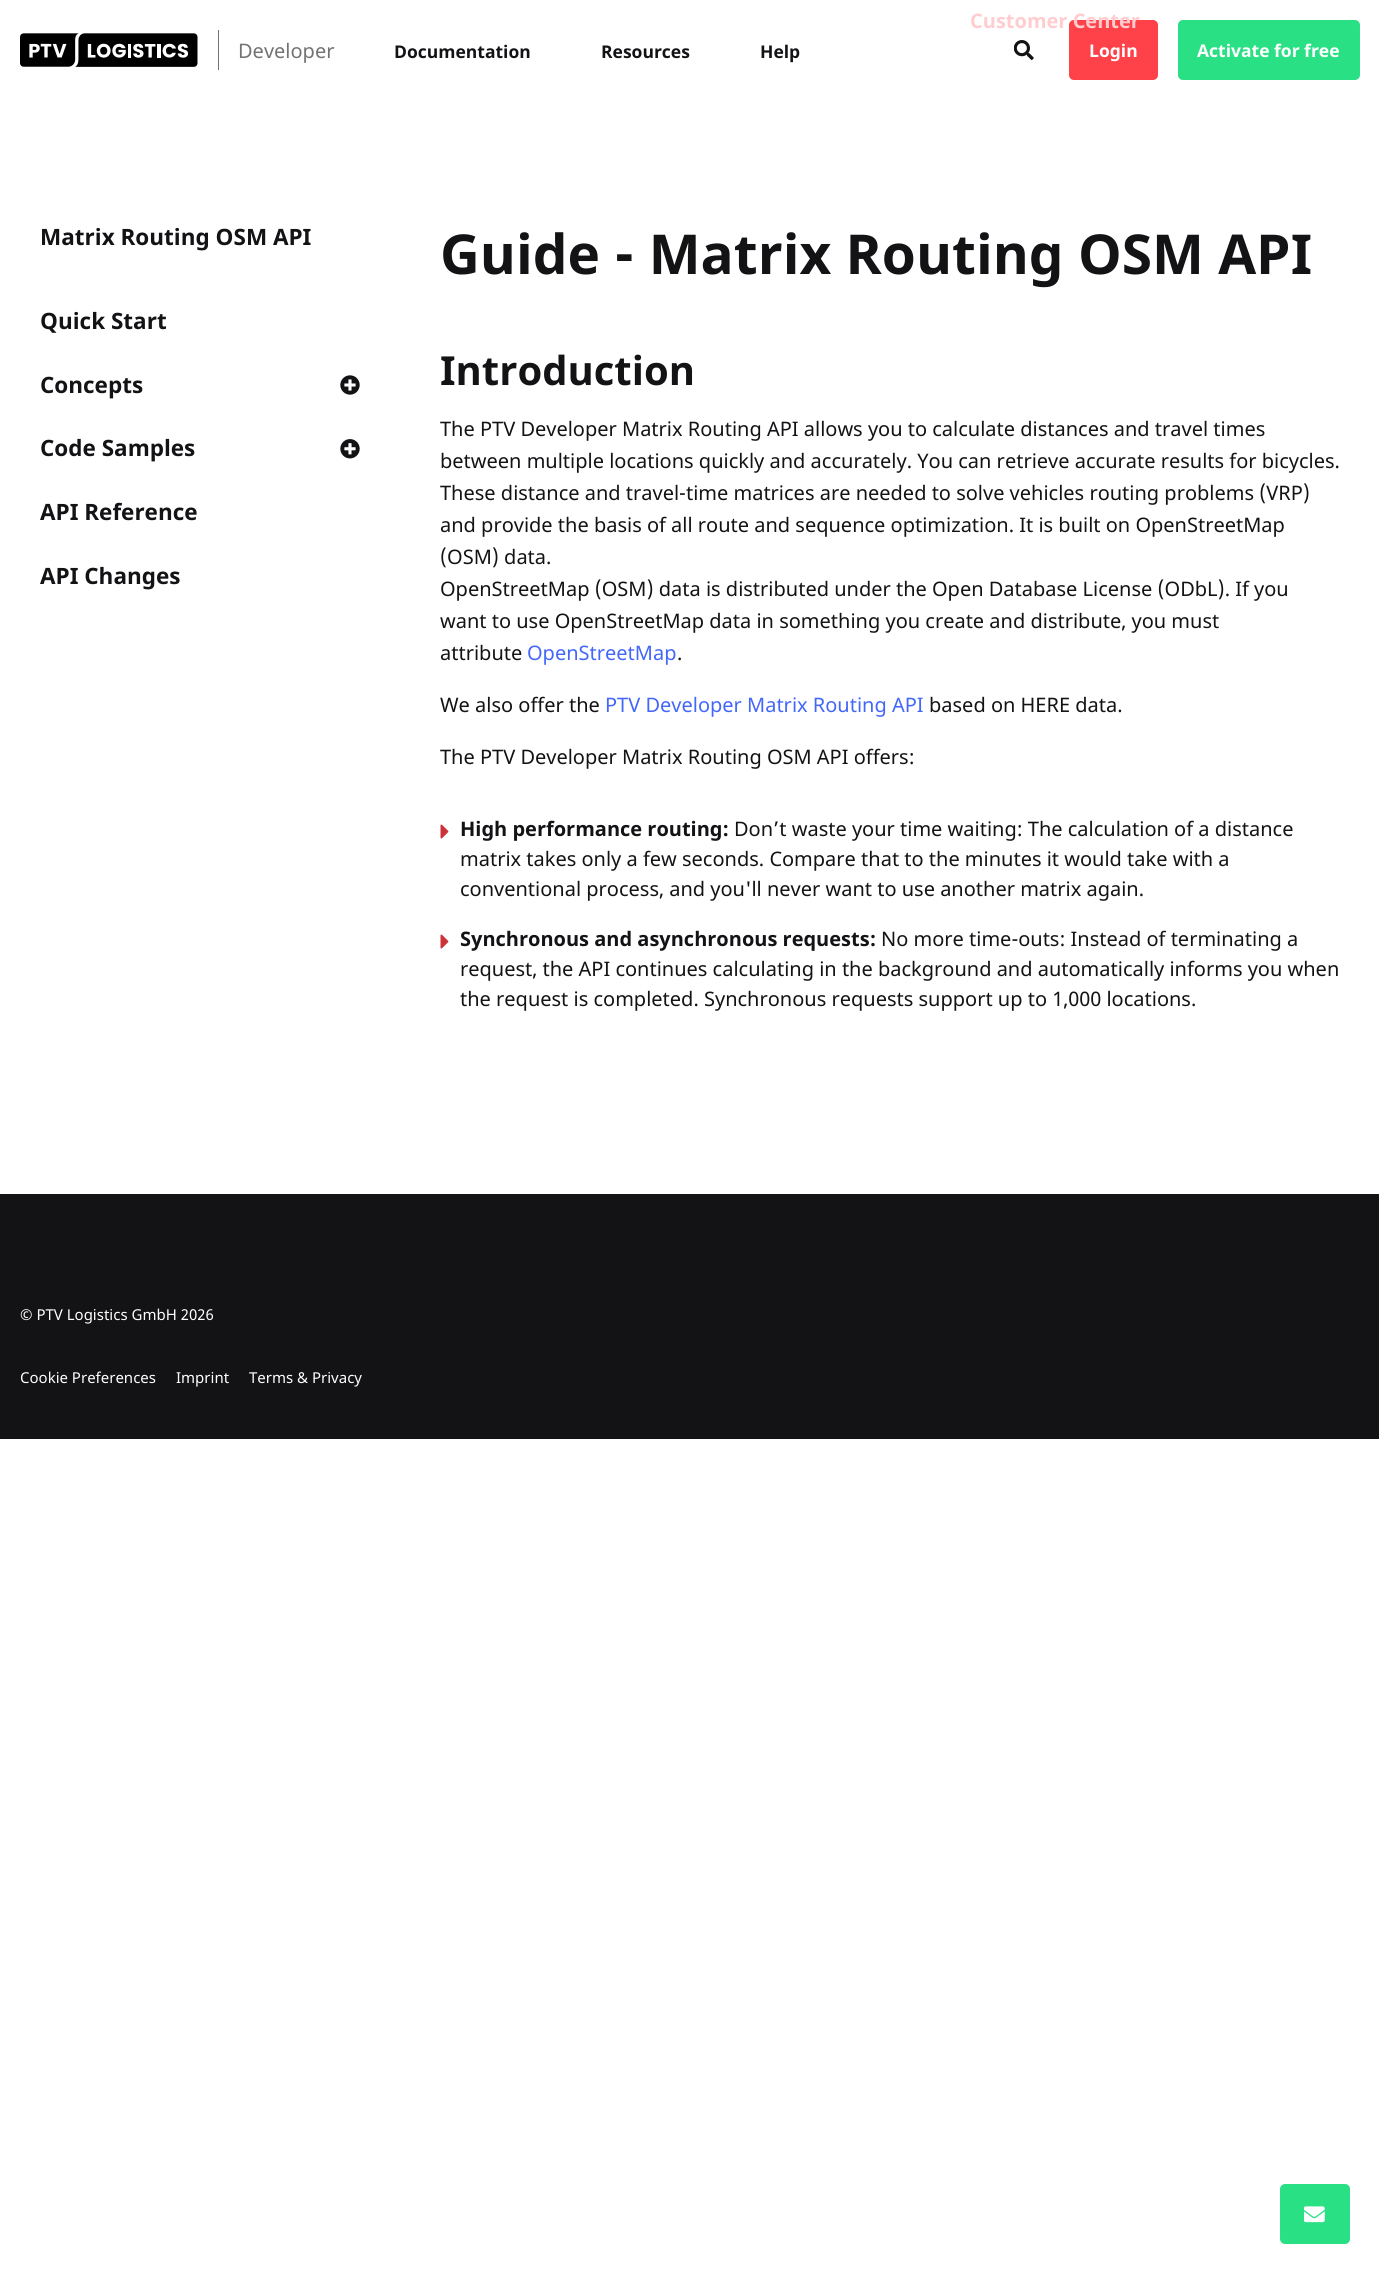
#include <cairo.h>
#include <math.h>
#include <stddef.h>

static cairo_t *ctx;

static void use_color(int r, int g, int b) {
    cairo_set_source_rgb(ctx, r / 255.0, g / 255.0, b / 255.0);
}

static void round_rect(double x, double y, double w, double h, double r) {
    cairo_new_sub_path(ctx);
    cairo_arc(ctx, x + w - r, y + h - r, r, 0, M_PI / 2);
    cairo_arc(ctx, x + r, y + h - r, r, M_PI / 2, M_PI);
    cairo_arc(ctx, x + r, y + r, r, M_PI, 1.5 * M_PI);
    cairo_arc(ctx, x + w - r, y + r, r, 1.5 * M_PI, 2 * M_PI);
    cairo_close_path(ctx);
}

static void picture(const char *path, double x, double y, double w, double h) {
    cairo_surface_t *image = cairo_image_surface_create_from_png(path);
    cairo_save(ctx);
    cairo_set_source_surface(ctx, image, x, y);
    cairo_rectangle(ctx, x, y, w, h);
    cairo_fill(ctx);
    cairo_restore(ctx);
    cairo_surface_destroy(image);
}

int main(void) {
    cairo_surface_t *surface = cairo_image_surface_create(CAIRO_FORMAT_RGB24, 1379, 2273);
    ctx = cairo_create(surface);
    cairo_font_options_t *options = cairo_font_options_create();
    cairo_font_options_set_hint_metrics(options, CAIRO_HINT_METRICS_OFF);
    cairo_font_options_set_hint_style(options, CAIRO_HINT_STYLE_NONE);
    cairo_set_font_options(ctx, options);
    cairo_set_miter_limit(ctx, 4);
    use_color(255, 255, 255);
    cairo_paint(ctx);
    picture("img1.png", 20, 33, 178, 34);
    use_color(115, 115, 115);
    cairo_rectangle(ctx, 218, 30, 1, 40);
    cairo_fill(ctx);
    cairo_select_font_face(ctx, "Noto Sans", CAIRO_FONT_SLANT_NORMAL, CAIRO_FONT_WEIGHT_NORMAL);
    cairo_set_font_size(ctx, 20);
    cairo_move_to(ctx, 238, 58);
    cairo_show_text(ctx, "Developer");
    cairo_select_font_face(ctx, "Noto Sans", CAIRO_FONT_SLANT_NORMAL, CAIRO_FONT_WEIGHT_BOLD);
    cairo_set_font_size(ctx, 17.5);
    use_color(19, 19, 22);
    cairo_move_to(ctx, 394, 58);
    cairo_show_text(ctx, "Documentation");
    cairo_move_to(ctx, 601, 58);
    cairo_show_text(ctx, "Resources");
    cairo_move_to(ctx, 760, 58);
    cairo_show_text(ctx, "Help");
    use_color(255, 66, 73);
    round_rect(1069, 20, 89, 60, 5);
    cairo_fill(ctx);
    cairo_set_font_size(ctx, 20);
    use_color(255, 205, 207);
    cairo_move_to(ctx, 970, 28);
    cairo_show_text(ctx, "Customer Center");
    cairo_set_font_size(ctx, 17.5);
    use_color(255, 255, 255);
    cairo_move_to(ctx, 1089, 57);
    cairo_show_text(ctx, "Login");
    use_color(41, 224, 133);
    round_rect(1178, 20, 182, 60, 5);
    cairo_fill(ctx);
    use_color(255, 255, 255);
    cairo_move_to(ctx, 1197, 57);
    cairo_show_text(ctx, "Activate for free");
    picture("img2.png", 1014, 40, 20, 20);
    cairo_set_font_size(ctx, 22.5);
    use_color(19, 19, 22);
    cairo_move_to(ctx, 40, 245);
    cairo_show_text(ctx, "Matrix Routing OSM API");
    cairo_move_to(ctx, 40, 329);
    cairo_show_text(ctx, "Quick Start");
    cairo_move_to(ctx, 40, 393);
    cairo_show_text(ctx, "Concepts");
    picture("img3.png", 340, 375, 20, 20);
    cairo_move_to(ctx, 40, 456);
    cairo_show_text(ctx, "Code Samples");
    picture("img4.png", 340, 439, 20, 20);
    cairo_move_to(ctx, 40, 520);
    cairo_show_text(ctx, "API Reference");
    cairo_move_to(ctx, 40, 584);
    cairo_show_text(ctx, "API Changes");
    cairo_set_font_size(ctx, 55);
    cairo_move_to(ctx, 440, 274);
    cairo_show_text(ctx, "Guide - Matrix Routing OSM API");
    cairo_set_font_size(ctx, 40);
    cairo_move_to(ctx, 440, 385);
    cairo_show_text(ctx, "Introduction");
    cairo_select_font_face(ctx, "Noto Sans", CAIRO_FONT_SLANT_NORMAL, CAIRO_FONT_WEIGHT_NORMAL);
    cairo_set_font_size(ctx, 20);
    cairo_move_to(ctx, 440, 436);
    cairo_show_text(ctx, "The PTV Developer Matrix Routing API allows you to calculate distances and travel times");
    cairo_move_to(ctx, 440, 468);
    cairo_show_text(ctx, "between multiple locations quickly and accurately. You can retrieve accurate results for bicycles.");
    cairo_move_to(ctx, 440, 500);
    cairo_show_text(ctx, "These distance and travel-time matrices are needed to solve vehicles routing problems (VRP)");
    cairo_move_to(ctx, 440, 532);
    cairo_show_text(ctx, "and provide the basis of all route and sequence optimization. It is built on OpenStreetMap");
    cairo_move_to(ctx, 440, 564);
    cairo_show_text(ctx, "(OSM) data.");
    cairo_move_to(ctx, 440, 596);
    cairo_show_text(ctx, "OpenStreetMap (OSM) data is distributed under the Open Database License (ODbL). If you");
    cairo_move_to(ctx, 440, 628);
    cairo_show_text(ctx, "want to use OpenStreetMap data in something you create and distribute, you must");
    cairo_move_to(ctx, 440, 660);
    cairo_show_text(ctx, "attribute");
    use_color(67, 103, 249);
    cairo_move_to(ctx, 527, 660);
    cairo_show_text(ctx, "OpenStreetMap");
    use_color(19, 19, 22);
    cairo_move_to(ctx, 677, 660);
    cairo_show_text(ctx, ".");
    cairo_move_to(ctx, 440, 712);
    cairo_show_text(ctx, "We also offer the");
    use_color(67, 103, 249);
    cairo_move_to(ctx, 605, 712);
    cairo_show_text(ctx, "PTV Developer Matrix Routing API");
    use_color(19, 19, 22);
    cairo_move_to(ctx, 929, 712);
    cairo_show_text(ctx, "based on HERE data.");
    cairo_move_to(ctx, 440, 764);
    cairo_show_text(ctx, "The PTV Developer Matrix Routing OSM API offers:");
    picture("img5.png", 440, 824, 9, 15);
    cairo_select_font_face(ctx, "Noto Sans", CAIRO_FONT_SLANT_NORMAL, CAIRO_FONT_WEIGHT_BOLD);
    cairo_move_to(ctx, 460, 836);
    cairo_show_text(ctx, "High performance routing:");
    cairo_select_font_face(ctx, "Noto Sans", CAIRO_FONT_SLANT_NORMAL, CAIRO_FONT_WEIGHT_NORMAL);
    cairo_move_to(ctx, 734, 836);
    cairo_show_text(ctx, "Don’t waste your time waiting: The calculation of a distance");
    cairo_move_to(ctx, 460, 866);
    cairo_show_text(ctx, "matrix takes only a few seconds. Compare that to the minutes it would take with a");
    cairo_move_to(ctx, 460, 896);
    cairo_show_text(ctx, "conventional process, and you'll never want to use another matrix again.");
    picture("img5.png", 440, 934, 9, 15);
    cairo_select_font_face(ctx, "Noto Sans", CAIRO_FONT_SLANT_NORMAL, CAIRO_FONT_WEIGHT_BOLD);
    cairo_move_to(ctx, 460, 946);
    cairo_show_text(ctx, "Synchronous and asynchronous requests:");
    cairo_select_font_face(ctx, "Noto Sans", CAIRO_FONT_SLANT_NORMAL, CAIRO_FONT_WEIGHT_NORMAL);
    cairo_move_to(ctx, 881, 946);
    cairo_show_text(ctx, "No more time-outs: Instead of terminating a");
    cairo_move_to(ctx, 460, 976);
    cairo_show_text(ctx, "request, the API continues calculating in the background and automatically informs you when");
    cairo_move_to(ctx, 460, 1006);
    cairo_show_text(ctx, "the request is completed. Synchronous requests support up to 1,000 locations.");
    cairo_rectangle(ctx, 0, 1194, 1379, 245);
    cairo_fill(ctx);
    cairo_set_font_size(ctx, 15);
    use_color(255, 255, 255);
    cairo_move_to(ctx, 20, 1320);
    cairo_show_text(ctx, "© PTV Logistics GmbH 2026");
    cairo_move_to(ctx, 20, 1383);
    cairo_show_text(ctx, "Cookie Preferences");
    cairo_move_to(ctx, 176, 1383);
    cairo_show_text(ctx, "Imprint");
    cairo_move_to(ctx, 249, 1383);
    cairo_show_text(ctx, "Terms & Privacy");
    use_color(41, 224, 133);
    round_rect(1280, 2184, 70, 60, 5);
    cairo_fill(ctx);
    picture("img6.png", 1304, 2206, 21, 17);
    cairo_surface_write_to_png(surface, "result.png");
    cairo_font_options_destroy(options);
    cairo_destroy(ctx);
    cairo_surface_destroy(surface);
    return 0;
}
